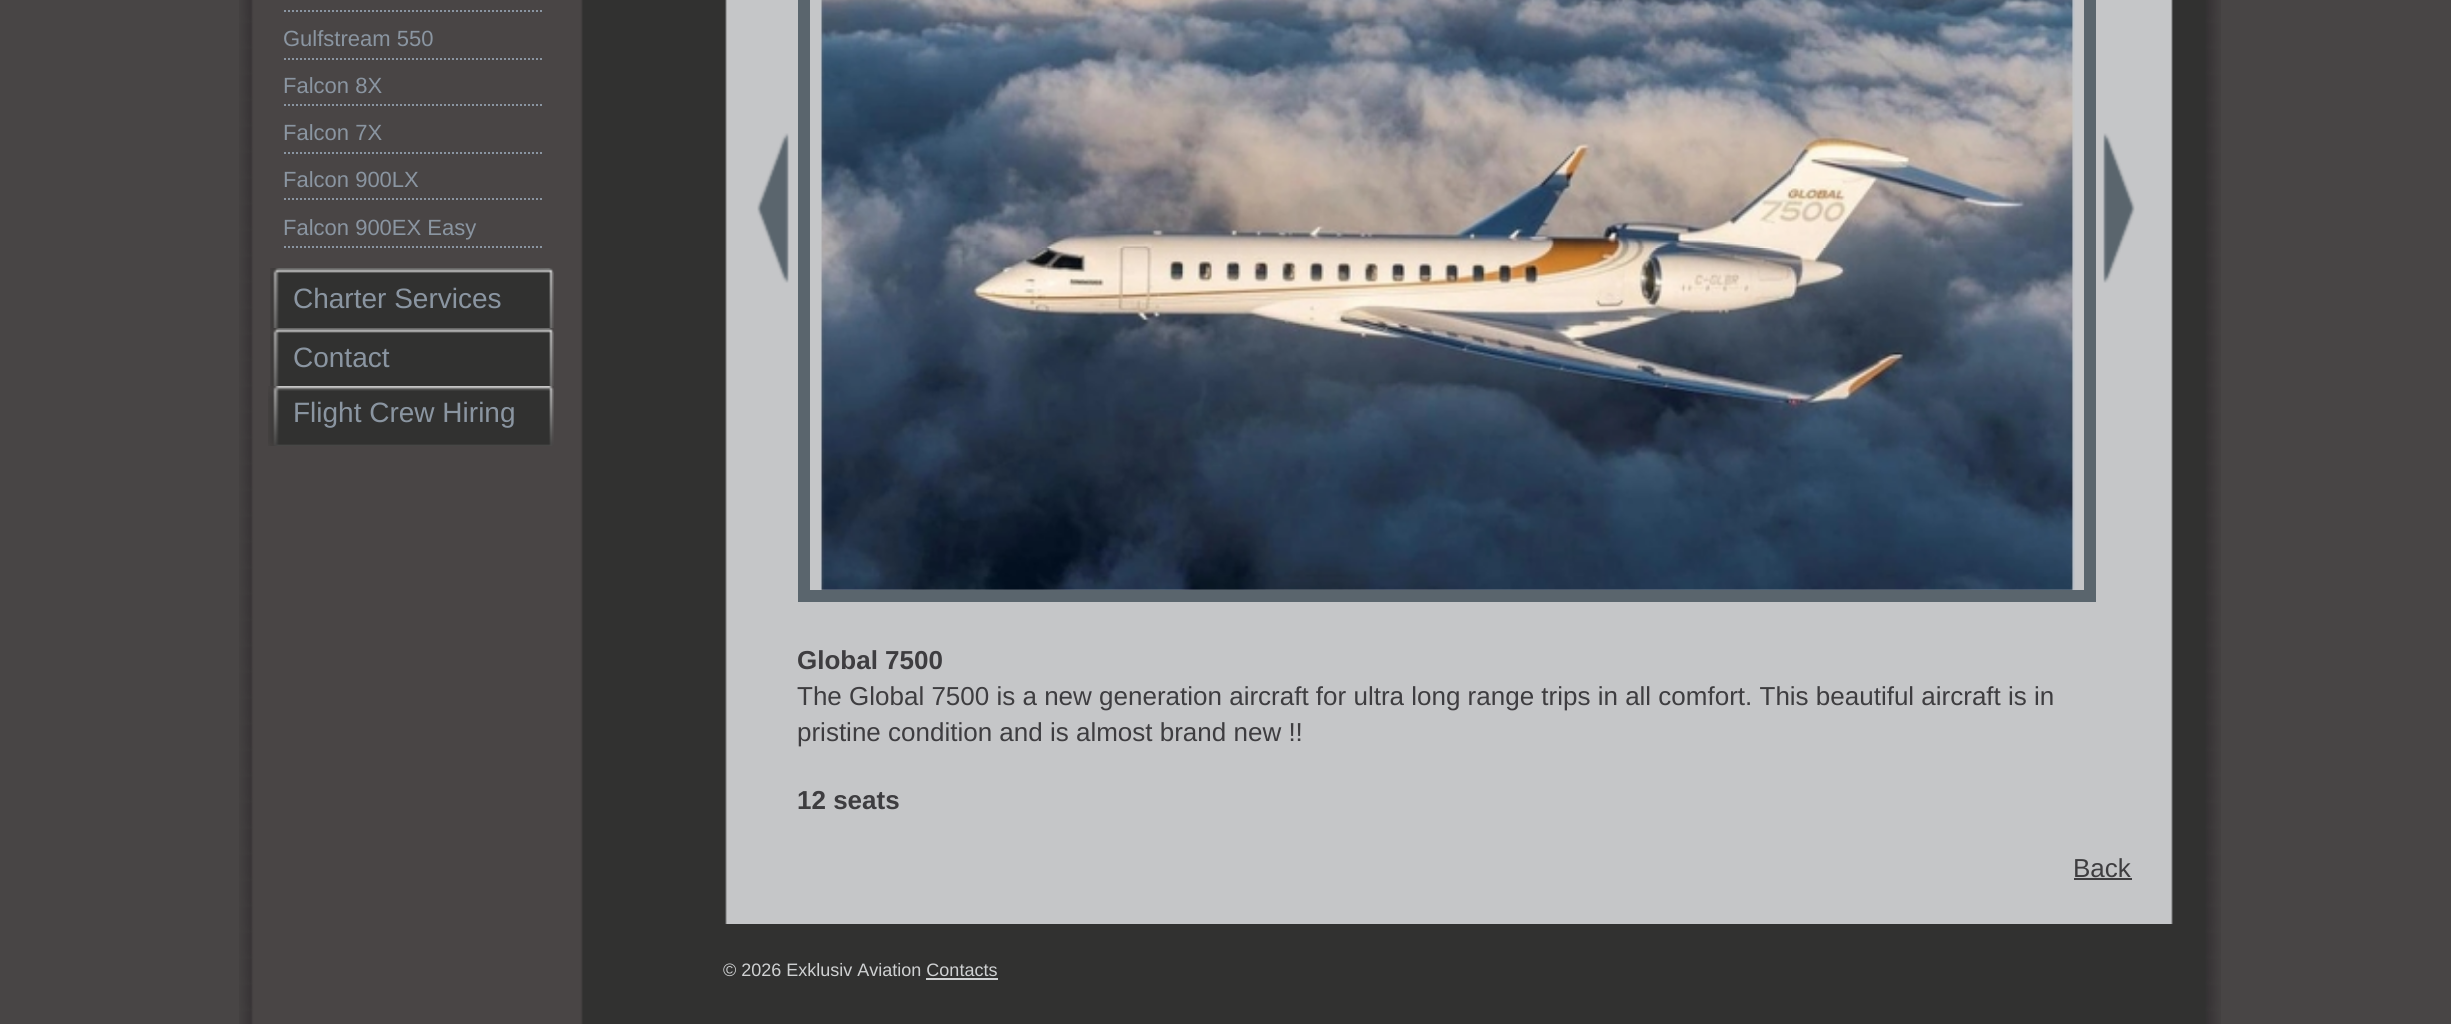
#include <cairo.h>
#include <math.h>
#include <stddef.h>

static cairo_t *ctx;

static void use_color(int r, int g, int b) {
    cairo_set_source_rgb(ctx, r / 255.0, g / 255.0, b / 255.0);
}

static void picture(const char *path, double x, double y, double w, double h) {
    cairo_surface_t *image = cairo_image_surface_create_from_png(path);
    cairo_save(ctx);
    cairo_set_source_surface(ctx, image, x, y);
    cairo_rectangle(ctx, x, y, w, h);
    cairo_fill(ctx);
    cairo_restore(ctx);
    cairo_surface_destroy(image);
}

int main(void) {
    cairo_surface_t *surface = cairo_image_surface_create(CAIRO_FORMAT_RGB24, 2451, 1024);
    ctx = cairo_create(surface);
    cairo_font_options_t *options = cairo_font_options_create();
    cairo_font_options_set_hint_metrics(options, CAIRO_HINT_METRICS_OFF);
    cairo_font_options_set_hint_style(options, CAIRO_HINT_STYLE_NONE);
    cairo_set_font_options(ctx, options);
    cairo_set_miter_limit(ctx, 4);
    use_color(72, 69, 69);
    cairo_paint(ctx);
    picture("img1.png", 239, 0, 1982, 1024);
    cairo_new_path(ctx);
    cairo_move_to(ctx, 284, 11);
    cairo_line_to(ctx, 544, 11);
    use_color(138, 149, 161);
    cairo_set_dash(ctx, (double[]){2, 2}, 2, 0);
    cairo_stroke(ctx);
    cairo_new_path(ctx);
    cairo_move_to(ctx, 284, 59);
    cairo_line_to(ctx, 544, 59);
    cairo_stroke(ctx);
    cairo_select_font_face(ctx, "Liberation Sans", CAIRO_FONT_SLANT_NORMAL, CAIRO_FONT_WEIGHT_NORMAL);
    cairo_set_font_size(ctx, 22);
    cairo_move_to(ctx, 283, 46);
    cairo_show_text(ctx, "Gulfstream 550");
    cairo_new_path(ctx);
    cairo_move_to(ctx, 284, 105);
    cairo_line_to(ctx, 544, 105);
    cairo_stroke(ctx);
    cairo_move_to(ctx, 283, 93);
    cairo_show_text(ctx, "Falcon 8X");
    cairo_new_path(ctx);
    cairo_move_to(ctx, 284, 153);
    cairo_line_to(ctx, 544, 153);
    cairo_stroke(ctx);
    cairo_move_to(ctx, 283, 140);
    cairo_show_text(ctx, "Falcon 7X");
    cairo_new_path(ctx);
    cairo_move_to(ctx, 284, 199);
    cairo_line_to(ctx, 544, 199);
    cairo_stroke(ctx);
    cairo_move_to(ctx, 283, 187);
    cairo_show_text(ctx, "Falcon 900LX");
    cairo_new_path(ctx);
    cairo_move_to(ctx, 284, 247);
    cairo_line_to(ctx, 544, 247);
    cairo_stroke(ctx);
    cairo_move_to(ctx, 283, 235);
    cairo_show_text(ctx, "Falcon 900EX Easy");
    picture("img2.png", 270, 268, 284, 60);
    cairo_set_font_size(ctx, 28);
    cairo_move_to(ctx, 293, 308);
    cairo_show_text(ctx, "Charter Services");
    picture("img3.png", 270, 328, 284, 58);
    cairo_move_to(ctx, 293, 367);
    cairo_show_text(ctx, "Contact");
    picture("img4.png", 268, 386, 286, 60);
    cairo_move_to(ctx, 293, 422);
    cairo_show_text(ctx, "Flight Crew Hiring");
    cairo_rectangle(ctx, 804, -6, 1286, 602);
    use_color(90, 101, 109);
    cairo_set_line_width(ctx, 12);
    cairo_set_dash(ctx, NULL, 0, 0);
    cairo_stroke(ctx);
    picture("img5.png", 820, 0, 1255, 590);
    picture("img6.png", 757, 133, 32, 150);
    picture("img7.png", 2103, 133, 32, 150);
    cairo_select_font_face(ctx, "Liberation Sans", CAIRO_FONT_SLANT_NORMAL, CAIRO_FONT_WEIGHT_BOLD);
    cairo_set_font_size(ctx, 26);
    use_color(62, 61, 64);
    cairo_move_to(ctx, 797, 669);
    cairo_show_text(ctx, "Global 7500");
    cairo_select_font_face(ctx, "Liberation Sans", CAIRO_FONT_SLANT_NORMAL, CAIRO_FONT_WEIGHT_NORMAL);
    cairo_move_to(ctx, 797, 705);
    cairo_show_text(ctx, "The Global 7500 is a new generation aircraft for ultra long range trips in all comfort. This beautiful aircraft is in");
    cairo_move_to(ctx, 797, 741);
    cairo_show_text(ctx, "pristine condition and is almost brand new !!");
    cairo_select_font_face(ctx, "Liberation Sans", CAIRO_FONT_SLANT_NORMAL, CAIRO_FONT_WEIGHT_BOLD);
    cairo_move_to(ctx, 797, 809);
    cairo_show_text(ctx, "12 seats");
    cairo_select_font_face(ctx, "Liberation Sans", CAIRO_FONT_SLANT_NORMAL, CAIRO_FONT_WEIGHT_NORMAL);
    cairo_move_to(ctx, 2073, 877);
    cairo_show_text(ctx, "Back");
    cairo_rectangle(ctx, 2074, 878, 58, 2);
    cairo_fill(ctx);
    use_color(49, 49, 48);
    cairo_rectangle(ctx, 725, 924, 1448, 100);
    cairo_fill(ctx);
    cairo_set_font_size(ctx, 18);
    use_color(207, 209, 210);
    cairo_move_to(ctx, 723, 976);
    cairo_show_text(ctx, "© 2026 Exklusiv Aviation Contacts");
    cairo_rectangle(ctx, 926, 978, 72, 2);
    cairo_fill(ctx);
    cairo_surface_write_to_png(surface, "result.png");
    cairo_font_options_destroy(options);
    cairo_destroy(ctx);
    cairo_surface_destroy(surface);
    return 0;
}
